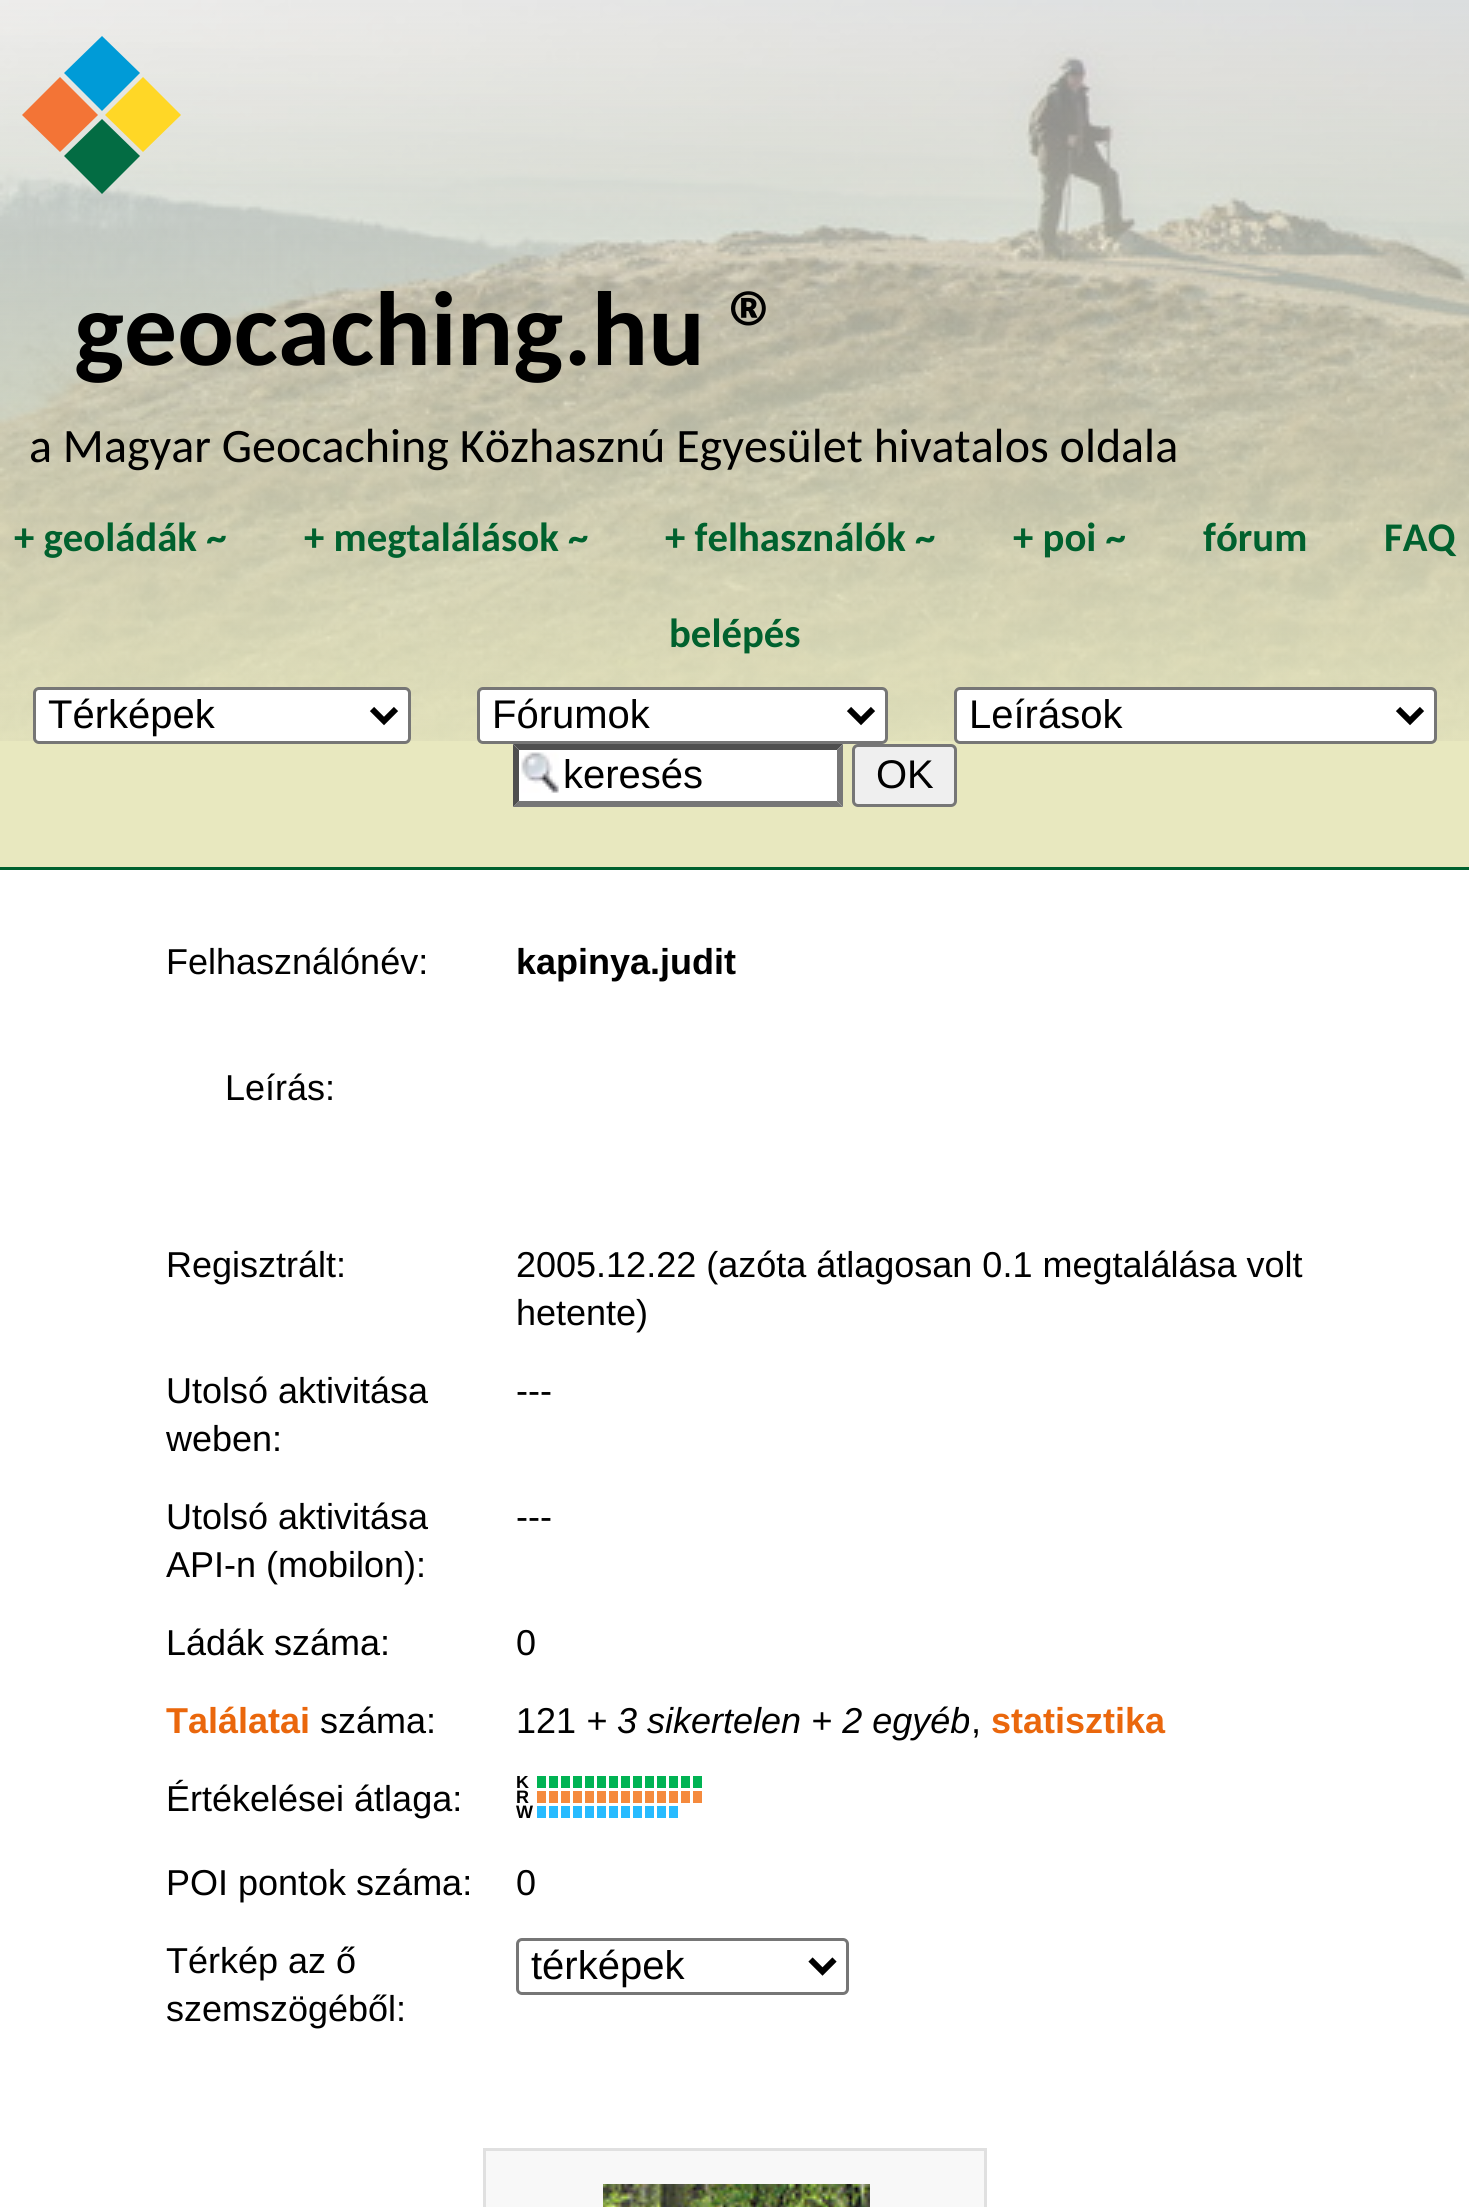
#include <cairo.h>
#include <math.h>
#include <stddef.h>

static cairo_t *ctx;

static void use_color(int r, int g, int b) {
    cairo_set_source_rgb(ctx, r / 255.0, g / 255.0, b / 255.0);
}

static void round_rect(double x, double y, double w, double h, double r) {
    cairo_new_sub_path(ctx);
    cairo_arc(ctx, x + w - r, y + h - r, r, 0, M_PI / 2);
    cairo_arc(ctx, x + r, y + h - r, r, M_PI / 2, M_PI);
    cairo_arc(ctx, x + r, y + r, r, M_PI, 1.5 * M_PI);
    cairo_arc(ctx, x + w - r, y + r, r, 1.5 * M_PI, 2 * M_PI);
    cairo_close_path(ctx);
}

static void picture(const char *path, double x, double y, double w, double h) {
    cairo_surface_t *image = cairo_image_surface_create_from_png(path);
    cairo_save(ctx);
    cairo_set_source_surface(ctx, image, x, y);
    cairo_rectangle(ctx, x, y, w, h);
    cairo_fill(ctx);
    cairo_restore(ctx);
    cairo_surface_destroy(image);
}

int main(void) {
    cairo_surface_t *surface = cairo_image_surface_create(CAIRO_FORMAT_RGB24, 1469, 2207);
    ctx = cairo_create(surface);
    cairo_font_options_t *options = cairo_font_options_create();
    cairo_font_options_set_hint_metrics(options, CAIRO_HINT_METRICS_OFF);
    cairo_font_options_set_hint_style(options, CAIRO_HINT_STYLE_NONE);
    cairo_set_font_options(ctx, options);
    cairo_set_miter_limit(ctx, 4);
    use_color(232, 232, 191);
    cairo_paint(ctx);
    picture("img1.png", 0, 0, 1469, 741);
    use_color(243, 116, 54);
    cairo_new_path(ctx);
    cairo_move_to(ctx, 98, 115);
    cairo_line_to(ctx, 60, 152);
    cairo_line_to(ctx, 22, 115);
    cairo_line_to(ctx, 60, 77);
    cairo_close_path(ctx);
    cairo_fill(ctx);
    use_color(0, 155, 215);
    cairo_new_path(ctx);
    cairo_move_to(ctx, 140, 73);
    cairo_line_to(ctx, 102, 111);
    cairo_line_to(ctx, 64, 73);
    cairo_line_to(ctx, 102, 36);
    cairo_close_path(ctx);
    cairo_fill(ctx);
    use_color(3, 108, 67);
    cairo_new_path(ctx);
    cairo_move_to(ctx, 140, 156);
    cairo_line_to(ctx, 102, 194);
    cairo_line_to(ctx, 64, 156);
    cairo_line_to(ctx, 102, 119);
    cairo_close_path(ctx);
    cairo_fill(ctx);
    use_color(255, 215, 38);
    cairo_new_path(ctx);
    cairo_move_to(ctx, 181, 115);
    cairo_line_to(ctx, 143, 152);
    cairo_line_to(ctx, 105, 115);
    cairo_line_to(ctx, 143, 77);
    cairo_close_path(ctx);
    cairo_fill(ctx);
    cairo_select_font_face(ctx, "Carlito", CAIRO_FONT_SLANT_NORMAL, CAIRO_FONT_WEIGHT_BOLD);
    cairo_set_font_size(ctx, 105.5);
    use_color(0, 0, 0);
    cairo_move_to(ctx, 74, 365);
    cairo_show_text(ctx, "geocaching.hu ®");
    cairo_select_font_face(ctx, "Carlito", CAIRO_FONT_SLANT_NORMAL, CAIRO_FONT_WEIGHT_NORMAL);
    cairo_set_font_size(ctx, 48);
    cairo_move_to(ctx, 29, 462);
    cairo_show_text(ctx, "a Magyar Geocaching Közhasznú Egyesület hivatalos oldala");
    cairo_select_font_face(ctx, "Carlito", CAIRO_FONT_SLANT_NORMAL, CAIRO_FONT_WEIGHT_BOLD);
    cairo_set_font_size(ctx, 40.75);
    use_color(0, 97, 46);
    cairo_move_to(ctx, 14, 551);
    cairo_show_text(ctx, "+ geoládák ~");
    cairo_move_to(ctx, 304, 551);
    cairo_show_text(ctx, "+ megtalálások ~");
    cairo_move_to(ctx, 665, 551);
    cairo_show_text(ctx, "+ felhasználók ~");
    cairo_move_to(ctx, 1013, 551);
    cairo_show_text(ctx, "+ poi ~");
    cairo_move_to(ctx, 1203, 551);
    cairo_show_text(ctx, "fórum");
    cairo_move_to(ctx, 1384, 551);
    cairo_show_text(ctx, "FAQ");
    cairo_move_to(ctx, 669, 647);
    cairo_show_text(ctx, "belépés");
    use_color(255, 255, 255);
    round_rect(34.5, 688.5, 375, 54, 4.5);
    cairo_fill_preserve(ctx);
    use_color(118, 118, 118);
    cairo_set_line_width(ctx, 3);
    cairo_stroke(ctx);
    cairo_new_path(ctx);
    cairo_move_to(ctx, 372, 709);
    cairo_line_to(ctx, 384, 721);
    cairo_line_to(ctx, 396, 709);
    use_color(0, 0, 0);
    cairo_set_line_width(ctx, 6);
    cairo_stroke(ctx);
    cairo_select_font_face(ctx, "Liberation Sans", CAIRO_FONT_SLANT_NORMAL, CAIRO_FONT_WEIGHT_NORMAL);
    cairo_set_font_size(ctx, 40);
    cairo_move_to(ctx, 48, 728);
    cairo_show_text(ctx, "Térképek");
    use_color(255, 255, 255);
    round_rect(478.5, 688.5, 408, 54, 4.5);
    cairo_fill_preserve(ctx);
    use_color(118, 118, 118);
    cairo_set_line_width(ctx, 3);
    cairo_stroke(ctx);
    cairo_new_path(ctx);
    cairo_move_to(ctx, 849, 709);
    cairo_line_to(ctx, 861, 721);
    cairo_line_to(ctx, 873, 709);
    use_color(0, 0, 0);
    cairo_set_line_width(ctx, 6);
    cairo_stroke(ctx);
    cairo_move_to(ctx, 492, 728);
    cairo_show_text(ctx, "Fórumok");
    use_color(255, 255, 255);
    round_rect(955.5, 688.5, 480, 54, 4.5);
    cairo_fill_preserve(ctx);
    use_color(118, 118, 118);
    cairo_set_line_width(ctx, 3);
    cairo_stroke(ctx);
    cairo_new_path(ctx);
    cairo_move_to(ctx, 1398, 709);
    cairo_line_to(ctx, 1410, 721);
    cairo_line_to(ctx, 1422, 709);
    use_color(0, 0, 0);
    cairo_set_line_width(ctx, 6);
    cairo_stroke(ctx);
    cairo_move_to(ctx, 969, 728);
    cairo_show_text(ctx, "Leírások");
    use_color(255, 255, 255);
    cairo_rectangle(ctx, 513, 744, 330, 63);
    cairo_fill(ctx);
    picture("img2.png", 521, 752, 38, 41);
    use_color(79, 79, 79);
    cairo_new_path(ctx);
    cairo_move_to(ctx, 513, 744);
    cairo_line_to(ctx, 843, 744);
    cairo_line_to(ctx, 837, 750);
    cairo_line_to(ctx, 519, 750);
    cairo_close_path(ctx);
    cairo_fill(ctx);
    use_color(118, 118, 118);
    cairo_new_path(ctx);
    cairo_move_to(ctx, 843, 744);
    cairo_line_to(ctx, 843, 807);
    cairo_line_to(ctx, 837, 801);
    cairo_line_to(ctx, 837, 750);
    cairo_close_path(ctx);
    cairo_fill(ctx);
    cairo_new_path(ctx);
    cairo_move_to(ctx, 843, 807);
    cairo_line_to(ctx, 513, 807);
    cairo_line_to(ctx, 519, 801);
    cairo_line_to(ctx, 837, 801);
    cairo_close_path(ctx);
    cairo_fill(ctx);
    use_color(79, 79, 79);
    cairo_new_path(ctx);
    cairo_move_to(ctx, 513, 807);
    cairo_line_to(ctx, 513, 744);
    cairo_line_to(ctx, 519, 750);
    cairo_line_to(ctx, 519, 801);
    cairo_close_path(ctx);
    cairo_fill(ctx);
    use_color(0, 0, 0);
    cairo_move_to(ctx, 563, 788);
    cairo_show_text(ctx, "keresés");
    use_color(239, 239, 239);
    round_rect(853.5, 745.5, 102, 60, 4.5);
    cairo_fill_preserve(ctx);
    use_color(118, 118, 118);
    cairo_set_line_width(ctx, 3);
    cairo_stroke(ctx);
    use_color(0, 0, 0);
    cairo_move_to(ctx, 876, 788);
    cairo_show_text(ctx, "OK");
    use_color(255, 255, 255);
    cairo_rectangle(ctx, 0, 870, 1469, 1337);
    cairo_fill(ctx);
    use_color(0, 97, 46);
    cairo_rectangle(ctx, 0, 867, 1469, 3);
    cairo_fill(ctx);
    cairo_set_font_size(ctx, 36);
    use_color(0, 0, 0);
    cairo_move_to(ctx, 166, 974);
    cairo_show_text(ctx, "Felhasználónév:");
    cairo_select_font_face(ctx, "Liberation Sans", CAIRO_FONT_SLANT_NORMAL, CAIRO_FONT_WEIGHT_BOLD);
    cairo_move_to(ctx, 516, 974);
    cairo_show_text(ctx, "kapinya.judit");
    cairo_select_font_face(ctx, "Liberation Sans", CAIRO_FONT_SLANT_NORMAL, CAIRO_FONT_WEIGHT_NORMAL);
    cairo_move_to(ctx, 225, 1100);
    cairo_show_text(ctx, "Leírás:");
    cairo_move_to(ctx, 166, 1277);
    cairo_show_text(ctx, "Regisztrált:");
    cairo_move_to(ctx, 516, 1277);
    cairo_show_text(ctx, "2005.12.22 (azóta átlagosan 0.1 megtalálása volt");
    cairo_move_to(ctx, 516, 1325);
    cairo_show_text(ctx, "hetente)");
    cairo_move_to(ctx, 166, 1403);
    cairo_show_text(ctx, "Utolsó aktivitása");
    cairo_move_to(ctx, 166, 1451);
    cairo_show_text(ctx, "weben:");
    cairo_move_to(ctx, 516, 1403);
    cairo_show_text(ctx, "---");
    cairo_move_to(ctx, 166, 1529);
    cairo_show_text(ctx, "Utolsó aktivitása");
    cairo_move_to(ctx, 166, 1577);
    cairo_show_text(ctx, "API-n (mobilon):");
    cairo_move_to(ctx, 516, 1529);
    cairo_show_text(ctx, "---");
    cairo_move_to(ctx, 166, 1655);
    cairo_show_text(ctx, "Ládák száma:");
    cairo_move_to(ctx, 516, 1655);
    cairo_show_text(ctx, "0");
    cairo_select_font_face(ctx, "Liberation Sans", CAIRO_FONT_SLANT_NORMAL, CAIRO_FONT_WEIGHT_BOLD);
    use_color(234, 103, 12);
    cairo_move_to(ctx, 166, 1733);
    cairo_show_text(ctx, "Találatai");
    cairo_select_font_face(ctx, "Liberation Sans", CAIRO_FONT_SLANT_NORMAL, CAIRO_FONT_WEIGHT_NORMAL);
    use_color(0, 0, 0);
    cairo_move_to(ctx, 320, 1733);
    cairo_show_text(ctx, "száma:");
    cairo_move_to(ctx, 516, 1733);
    cairo_show_text(ctx, "121");
    cairo_select_font_face(ctx, "Liberation Sans", CAIRO_FONT_SLANT_ITALIC, CAIRO_FONT_WEIGHT_NORMAL);
    cairo_move_to(ctx, 586, 1733);
    cairo_show_text(ctx, "+ 3 sikertelen + 2 egyéb");
    cairo_select_font_face(ctx, "Liberation Sans", CAIRO_FONT_SLANT_NORMAL, CAIRO_FONT_WEIGHT_NORMAL);
    cairo_move_to(ctx, 971, 1733);
    cairo_show_text(ctx, ",");
    cairo_select_font_face(ctx, "Liberation Sans", CAIRO_FONT_SLANT_NORMAL, CAIRO_FONT_WEIGHT_BOLD);
    use_color(234, 103, 12);
    cairo_move_to(ctx, 991, 1733);
    cairo_show_text(ctx, "statisztika");
    cairo_select_font_face(ctx, "Liberation Sans", CAIRO_FONT_SLANT_NORMAL, CAIRO_FONT_WEIGHT_NORMAL);
    use_color(0, 0, 0);
    cairo_move_to(ctx, 166, 1811);
    cairo_show_text(ctx, "Értékelései átlaga:");
    cairo_save(ctx);
    cairo_rectangle(ctx, 516, 1776, 210, 42);
    cairo_clip(ctx);
    cairo_select_font_face(ctx, "Liberation Sans", CAIRO_FONT_SLANT_NORMAL, CAIRO_FONT_WEIGHT_BOLD);
    cairo_set_font_size(ctx, 18);
    cairo_move_to(ctx, 516, 1788);
    cairo_show_text(ctx, "K");
    cairo_restore(ctx);
    cairo_new_path(ctx);
    cairo_move_to(ctx, 537, 1782);
    cairo_line_to(ctx, 705, 1782);
    use_color(0, 179, 83);
    cairo_set_line_width(ctx, 12);
    cairo_set_dash(ctx, (double[]){9, 3}, 2, 0);
    cairo_stroke(ctx);
    cairo_select_font_face(ctx, "Liberation Sans", CAIRO_FONT_SLANT_NORMAL, CAIRO_FONT_WEIGHT_BOLD);
    cairo_set_font_size(ctx, 18);
    use_color(0, 0, 0);
    cairo_move_to(ctx, 516, 1803);
    cairo_show_text(ctx, "R");
    cairo_new_path(ctx);
    cairo_move_to(ctx, 537, 1797);
    cairo_line_to(ctx, 705, 1797);
    use_color(245, 138, 61);
    cairo_stroke(ctx);
    use_color(0, 0, 0);
    cairo_move_to(ctx, 516, 1818);
    cairo_show_text(ctx, "W");
    cairo_new_path(ctx);
    cairo_move_to(ctx, 537, 1812);
    cairo_line_to(ctx, 681, 1812);
    use_color(40, 187, 255);
    cairo_stroke(ctx);
    cairo_select_font_face(ctx, "Liberation Sans", CAIRO_FONT_SLANT_NORMAL, CAIRO_FONT_WEIGHT_NORMAL);
    cairo_set_font_size(ctx, 36);
    use_color(0, 0, 0);
    cairo_move_to(ctx, 166, 1895);
    cairo_show_text(ctx, "POI pontok száma:");
    cairo_move_to(ctx, 516, 1895);
    cairo_show_text(ctx, "0");
    cairo_move_to(ctx, 166, 1973);
    cairo_show_text(ctx, "Térkép az ő");
    cairo_move_to(ctx, 166, 2021);
    cairo_show_text(ctx, "szemszögéből:");
    round_rect(517.5, 1939.5, 330, 54, 4.5);
    use_color(118, 118, 118);
    cairo_set_line_width(ctx, 3);
    cairo_set_dash(ctx, NULL, 0, 0);
    cairo_stroke(ctx);
    cairo_new_path(ctx);
    cairo_move_to(ctx, 810.5, 1959.5);
    cairo_line_to(ctx, 822.5, 1971.5);
    cairo_line_to(ctx, 834.5, 1959.5);
    use_color(0, 0, 0);
    cairo_set_line_width(ctx, 6);
    cairo_stroke(ctx);
    cairo_set_font_size(ctx, 40);
    cairo_move_to(ctx, 531, 1979);
    cairo_show_text(ctx, "térképek");
    use_color(248, 248, 248);
    cairo_rectangle(ctx, 484.5, 2149.5, 501, 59);
    cairo_fill_preserve(ctx);
    use_color(224, 224, 224);
    cairo_set_line_width(ctx, 3);
    cairo_stroke(ctx);
    picture("img3.png", 603, 2184, 267, 23);
    cairo_surface_write_to_png(surface, "result.png");
    cairo_font_options_destroy(options);
    cairo_destroy(ctx);
    cairo_surface_destroy(surface);
    return 0;
}
